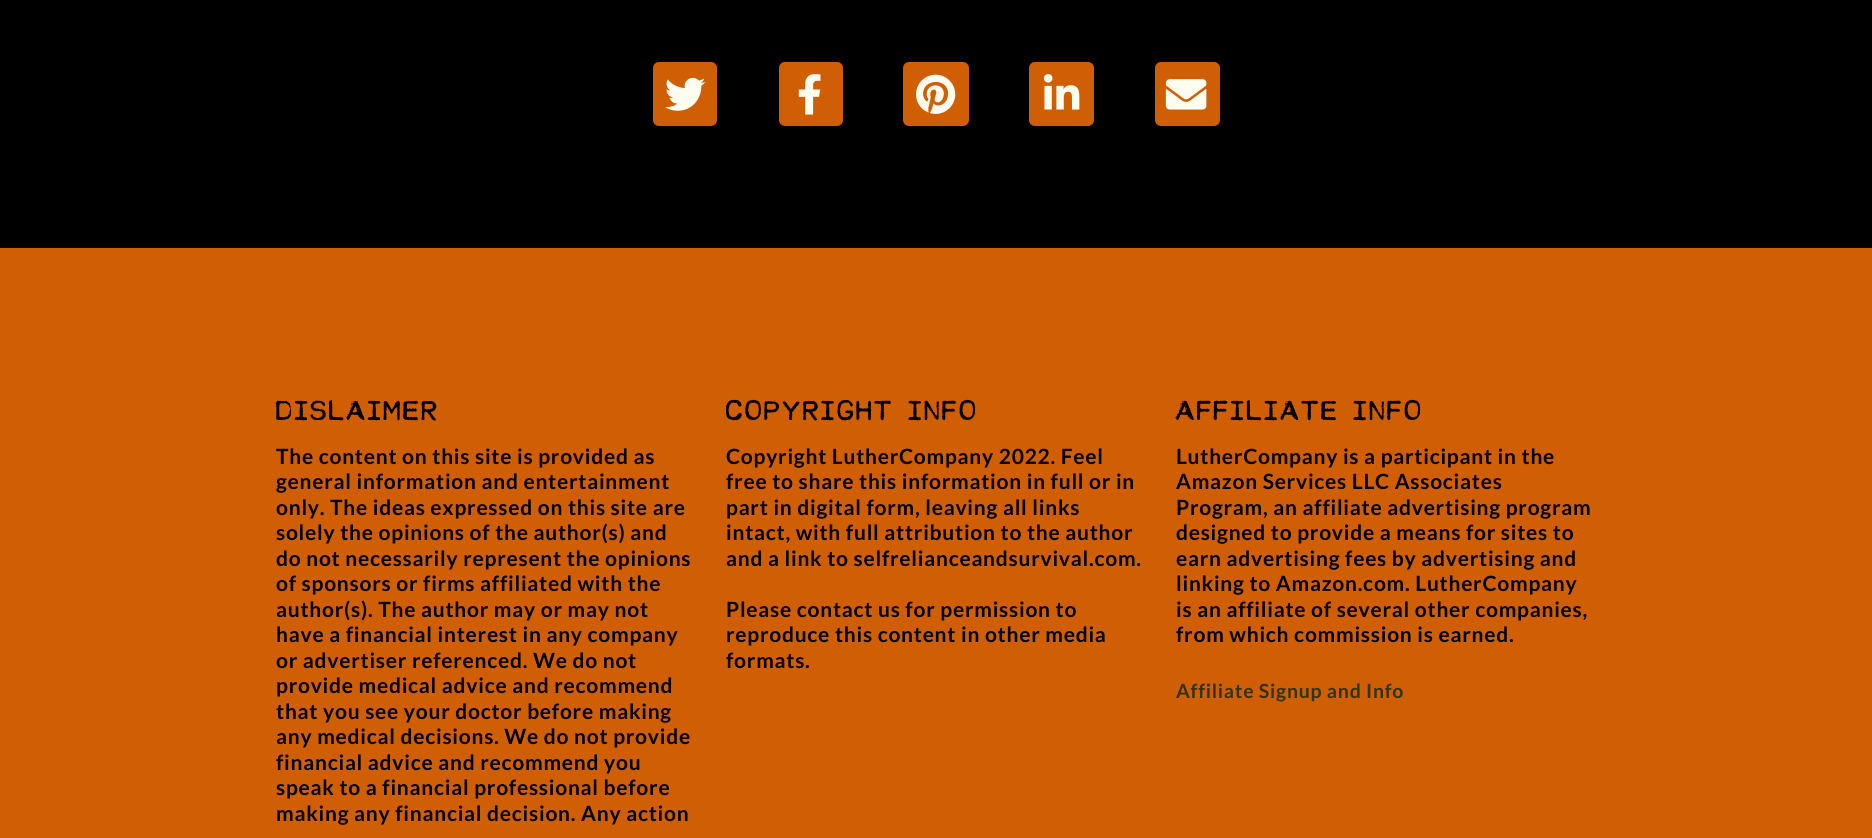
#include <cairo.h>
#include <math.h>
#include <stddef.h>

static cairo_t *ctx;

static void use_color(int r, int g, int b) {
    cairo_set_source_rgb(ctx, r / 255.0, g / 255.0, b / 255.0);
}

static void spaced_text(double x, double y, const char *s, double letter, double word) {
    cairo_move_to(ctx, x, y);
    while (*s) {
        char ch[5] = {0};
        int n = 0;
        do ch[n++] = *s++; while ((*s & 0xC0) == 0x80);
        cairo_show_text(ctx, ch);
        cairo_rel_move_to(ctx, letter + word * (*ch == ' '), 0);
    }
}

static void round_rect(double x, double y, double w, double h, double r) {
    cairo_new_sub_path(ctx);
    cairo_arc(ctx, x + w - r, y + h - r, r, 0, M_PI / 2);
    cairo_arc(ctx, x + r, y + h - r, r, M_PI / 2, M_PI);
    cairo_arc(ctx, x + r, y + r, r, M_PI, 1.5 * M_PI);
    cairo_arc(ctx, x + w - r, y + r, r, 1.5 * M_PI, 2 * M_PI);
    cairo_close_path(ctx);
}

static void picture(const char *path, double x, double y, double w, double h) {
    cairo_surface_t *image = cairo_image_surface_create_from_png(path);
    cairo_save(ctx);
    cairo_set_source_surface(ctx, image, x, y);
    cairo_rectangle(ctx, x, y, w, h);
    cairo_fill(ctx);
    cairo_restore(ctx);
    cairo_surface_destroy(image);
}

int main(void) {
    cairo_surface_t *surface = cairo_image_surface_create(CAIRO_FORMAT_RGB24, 1872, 838);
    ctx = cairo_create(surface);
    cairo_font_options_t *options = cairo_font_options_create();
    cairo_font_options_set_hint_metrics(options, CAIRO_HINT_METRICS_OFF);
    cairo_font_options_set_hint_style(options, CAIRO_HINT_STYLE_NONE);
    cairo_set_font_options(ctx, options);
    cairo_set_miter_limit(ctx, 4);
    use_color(0, 0, 0);
    cairo_paint(ctx);
    use_color(208, 94, 4);
    round_rect(653, 62, 64, 64, 6);
    cairo_fill(ctx);
    picture("img1.png", 665, 77, 41, 34);
    round_rect(779, 62, 64, 64, 6);
    cairo_fill(ctx);
    picture("img2.png", 798, 74, 23, 41);
    round_rect(903, 62, 66, 64, 6);
    cairo_fill(ctx);
    picture("img3.png", 916, 74, 40, 40);
    round_rect(1029, 62, 65, 64, 6);
    cairo_fill(ctx);
    picture("img4.png", 1043, 74, 37, 36);
    round_rect(1155, 62, 65, 64, 6);
    cairo_fill(ctx);
    picture("img5.png", 1165, 79, 42, 31);
    cairo_rectangle(ctx, 0, 248, 1872, 590);
    cairo_fill(ctx);
    cairo_select_font_face(ctx, "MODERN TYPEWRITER", CAIRO_FONT_SLANT_NORMAL, CAIRO_FONT_WEIGHT_NORMAL);
    cairo_set_font_size(ctx, 27);
    use_color(0, 0, 0);
    spaced_text(276, 420, "DISLAIMER", 0.75, 0);
    cairo_select_font_face(ctx, "Lato", CAIRO_FONT_SLANT_NORMAL, CAIRO_FONT_WEIGHT_BOLD);
    cairo_set_font_size(ctx, 21);
    spaced_text(276, 464, "The content on this site is provided as", 0.75, 0);
    spaced_text(276, 489, "general information and entertainment", 0.75, 0);
    spaced_text(276, 515, "only. The ideas expressed on this site are", 0.75, 0);
    spaced_text(276, 540, "solely the opinions of the author(s) and", 0.75, 0);
    spaced_text(276, 566, "do not necessarily represent the opinions", 0.75, 0);
    spaced_text(276, 591, "of sponsors or firms affiliated with the", 0.75, 0);
    spaced_text(276, 617, "author(s). The author may or may not", 0.75, 0);
    spaced_text(276, 642, "have a financial interest in any company", 0.75, 0);
    spaced_text(276, 668, "or advertiser referenced. We do not", 0.75, 0);
    spaced_text(276, 693, "provide medical advice and recommend", 0.75, 0);
    spaced_text(276, 719, "that you see your doctor before making", 0.75, 0);
    spaced_text(276, 744, "any medical decisions. We do not provide", 0.75, 0);
    spaced_text(276, 770, "financial advice and recommend you", 0.75, 0);
    spaced_text(276, 795, "speak to a financial professional before", 0.75, 0);
    spaced_text(276, 821, "making any financial decision. Any action", 0.75, 0);
    cairo_select_font_face(ctx, "MODERN TYPEWRITER", CAIRO_FONT_SLANT_NORMAL, CAIRO_FONT_WEIGHT_NORMAL);
    cairo_set_font_size(ctx, 27);
    spaced_text(726, 420, "COPYRIGHT INFO", 0.75, 0);
    cairo_select_font_face(ctx, "Lato", CAIRO_FONT_SLANT_NORMAL, CAIRO_FONT_WEIGHT_BOLD);
    cairo_set_font_size(ctx, 21);
    spaced_text(726, 464, "Copyright LutherCompany 2022. Feel", 0.75, 0);
    spaced_text(726, 489, "free to share this information in full or in", 0.75, 0);
    spaced_text(726, 515, "part in digital form, leaving all links", 0.75, 0);
    spaced_text(726, 540, "intact, with full attribution to the author", 0.75, 0);
    spaced_text(726, 566, "and a link to selfrelianceandsurvival.com.", 0.75, 0);
    spaced_text(726, 617, "Please contact us for permission to", 0.75, 0);
    spaced_text(726, 642, "reproduce this content in other media", 0.75, 0);
    spaced_text(726, 668, "formats.", 0.75, 0);
    cairo_select_font_face(ctx, "MODERN TYPEWRITER", CAIRO_FONT_SLANT_NORMAL, CAIRO_FONT_WEIGHT_NORMAL);
    cairo_set_font_size(ctx, 27);
    spaced_text(1176, 420, "AFFILIATE INFO", 0.75, 0);
    cairo_select_font_face(ctx, "Lato", CAIRO_FONT_SLANT_NORMAL, CAIRO_FONT_WEIGHT_BOLD);
    cairo_set_font_size(ctx, 21);
    spaced_text(1176, 464, "LutherCompany is a participant in the", 0.75, 0);
    spaced_text(1176, 489, "Amazon Services LLC Associates", 0.75, 0);
    spaced_text(1176, 515, "Program, an affiliate advertising program", 0.75, 0);
    spaced_text(1176, 540, "designed to provide a means for sites to", 0.75, 0);
    spaced_text(1176, 566, "earn advertising fees by advertising and", 0.75, 0);
    spaced_text(1176, 591, "linking to Amazon.com. LutherCompany", 0.75, 0);
    spaced_text(1176, 617, "is an affiliate of several other companies,", 0.75, 0);
    spaced_text(1176, 642, "from which commission is earned.", 0.75, 0);
    cairo_set_font_size(ctx, 19.5);
    use_color(51, 51, 0);
    spaced_text(1176, 698, "Affiliate Signup and Info", 0.75, 0);
    cairo_surface_write_to_png(surface, "result.png");
    cairo_font_options_destroy(options);
    cairo_destroy(ctx);
    cairo_surface_destroy(surface);
    return 0;
}
